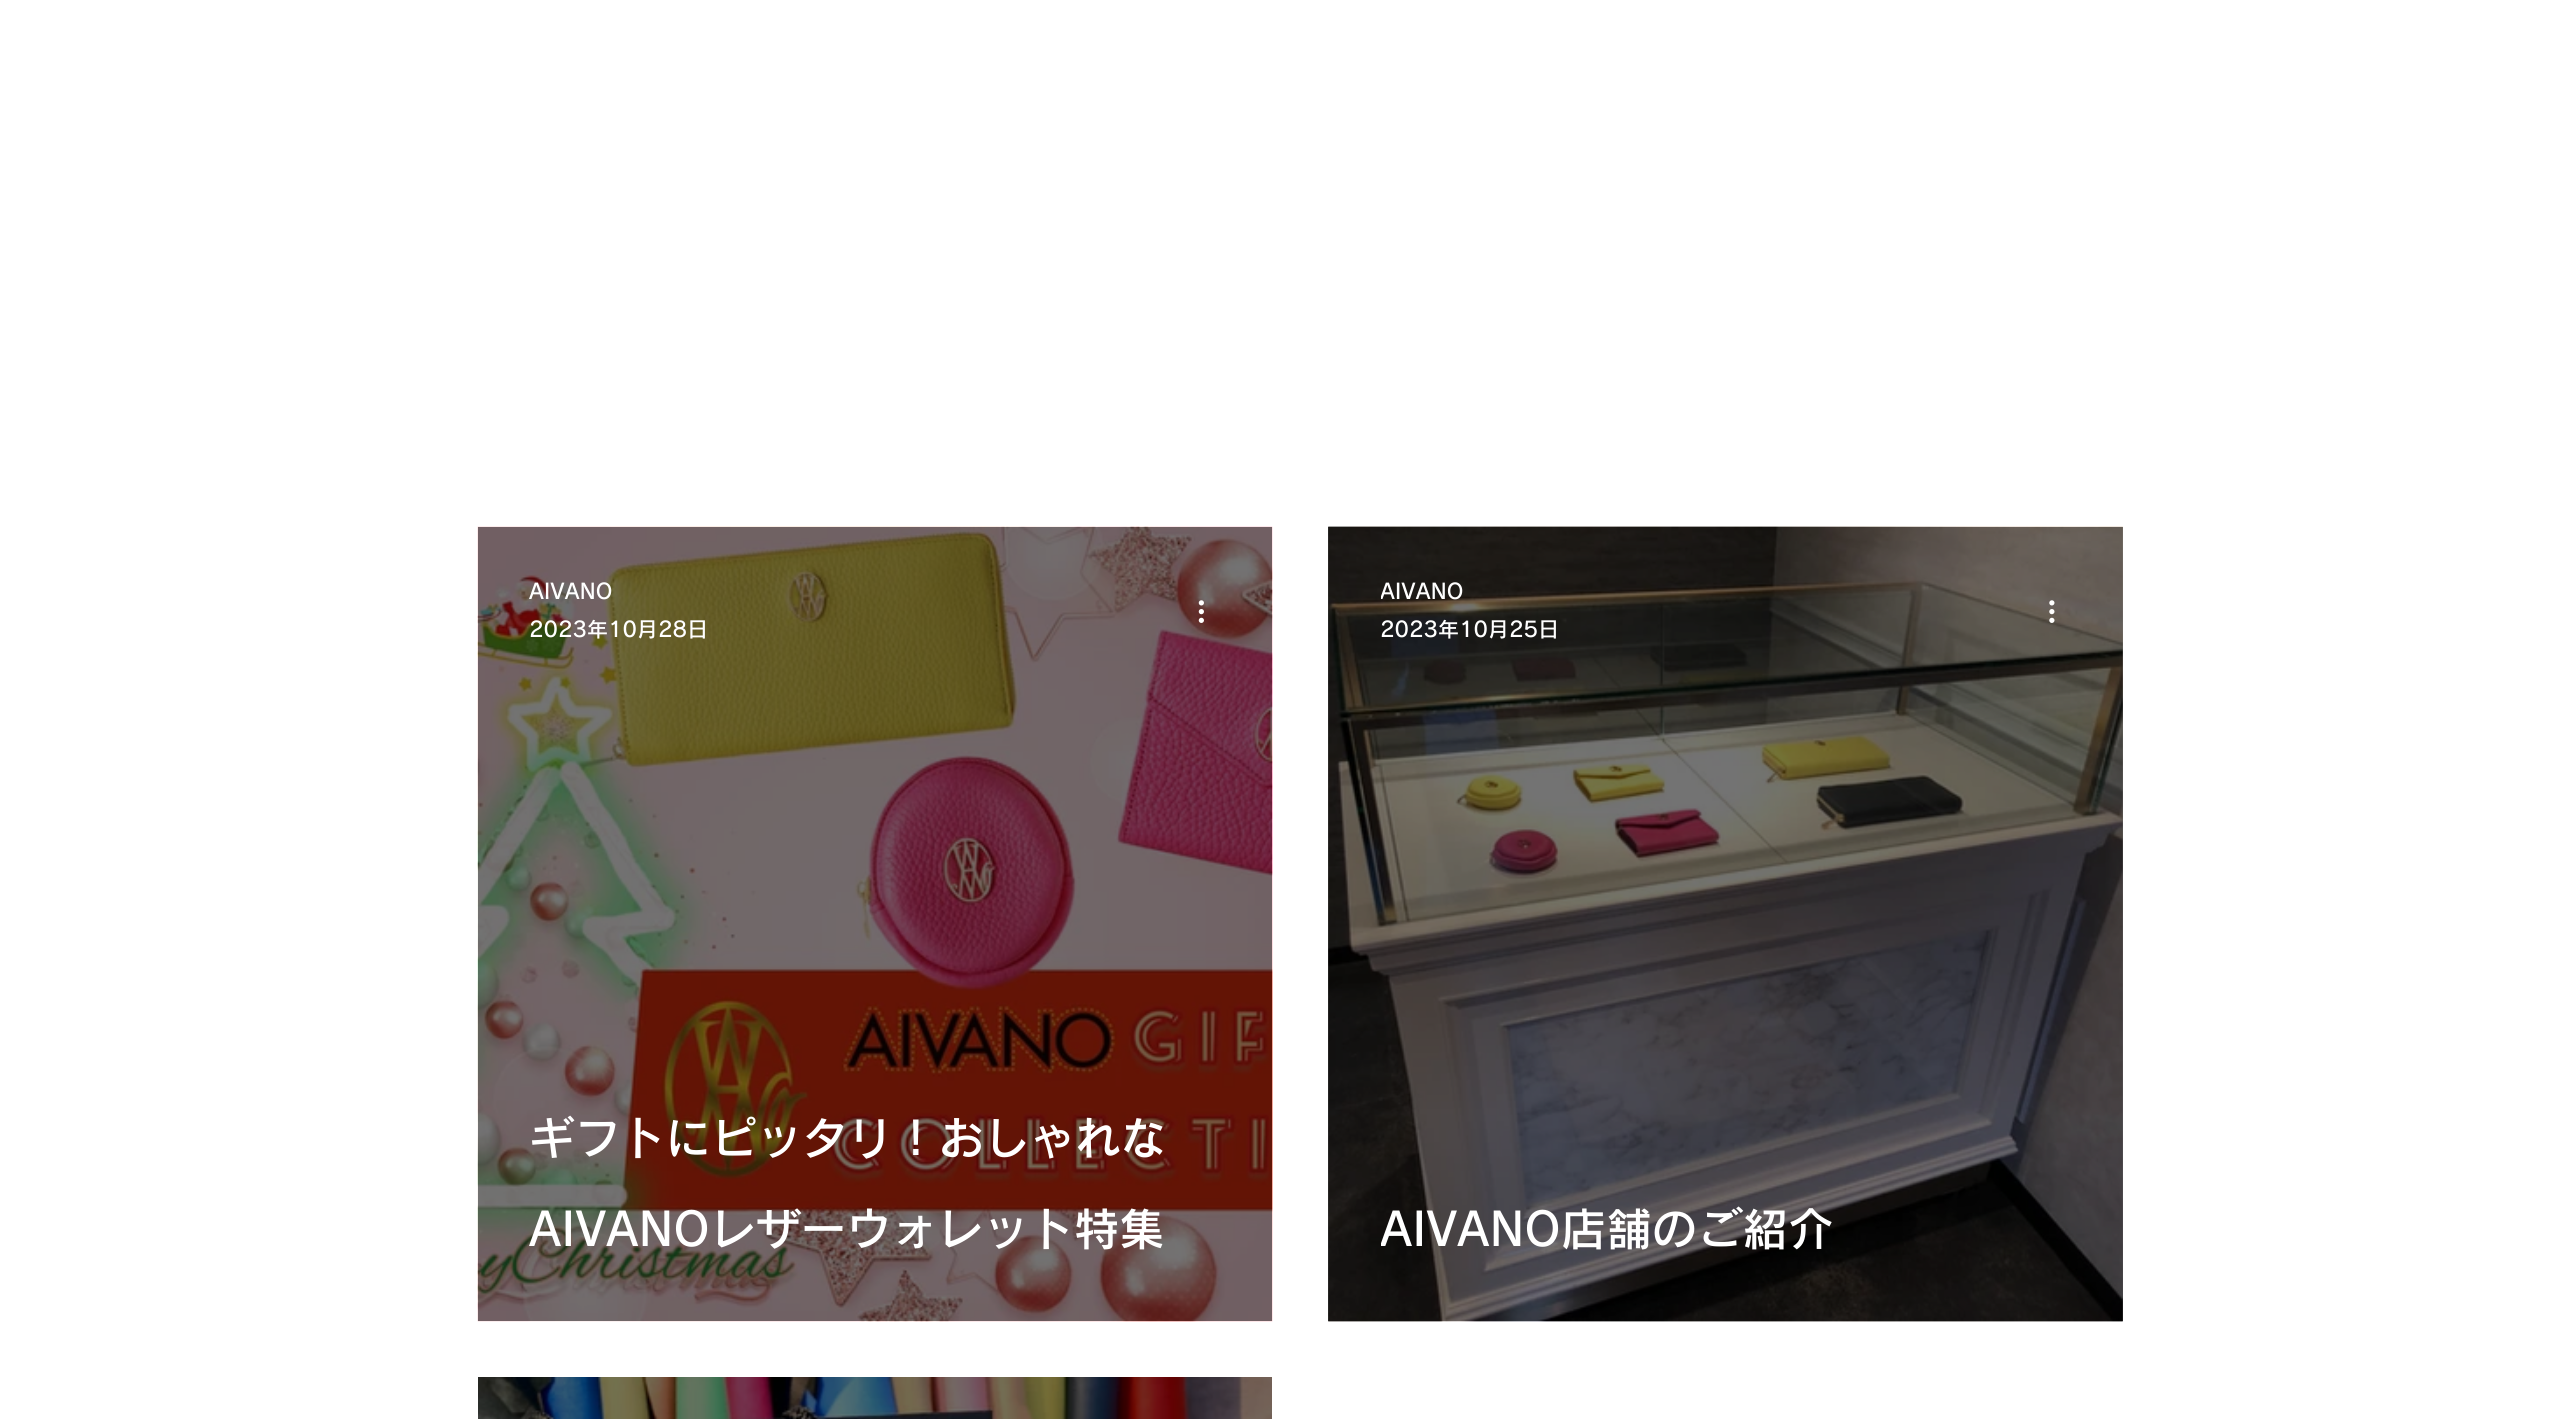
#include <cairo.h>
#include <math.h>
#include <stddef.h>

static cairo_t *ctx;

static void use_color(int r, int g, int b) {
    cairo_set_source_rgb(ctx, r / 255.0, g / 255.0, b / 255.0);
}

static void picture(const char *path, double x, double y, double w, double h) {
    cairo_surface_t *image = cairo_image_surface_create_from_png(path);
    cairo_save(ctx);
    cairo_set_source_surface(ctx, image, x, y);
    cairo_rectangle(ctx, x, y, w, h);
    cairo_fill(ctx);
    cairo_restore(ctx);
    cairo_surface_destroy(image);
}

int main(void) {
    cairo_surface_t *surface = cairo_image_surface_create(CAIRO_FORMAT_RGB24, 2549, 1419);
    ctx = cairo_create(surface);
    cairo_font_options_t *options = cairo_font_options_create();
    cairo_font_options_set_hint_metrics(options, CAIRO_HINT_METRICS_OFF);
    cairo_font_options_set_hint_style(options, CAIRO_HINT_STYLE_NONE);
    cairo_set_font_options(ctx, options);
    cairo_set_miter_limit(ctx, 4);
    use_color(255, 255, 255);
    cairo_paint(ctx);
    picture("img1.png", 477, 526, 796, 796);
    picture("img2.png", 477, 526, 796, 796);
    cairo_select_font_face(ctx, "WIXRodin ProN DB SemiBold", CAIRO_FONT_SLANT_NORMAL, CAIRO_FONT_WEIGHT_NORMAL);
    cairo_set_font_size(ctx, 21);
    use_color(255, 255, 255);
    cairo_move_to(ctx, 529, 599);
    cairo_show_text(ctx, "AIVANO");
    cairo_move_to(ctx, 529, 637);
    cairo_show_text(ctx, "2023年10月28日");
    picture("img3.png", 1198, 600, 6, 23);
    cairo_set_font_size(ctx, 45.5);
    cairo_move_to(ctx, 529, 1155);
    cairo_show_text(ctx, "ギフトにピッタリ！おしゃれな");
    cairo_move_to(ctx, 529, 1246);
    cairo_show_text(ctx, "AIVANOレザーウォレット特集");
    picture("img4.png", 1328, 526, 795, 796);
    picture("img5.png", 1328, 526, 795, 796);
    cairo_save(ctx);
    cairo_rectangle(ctx, 1381, 571, 82, 42);
    cairo_clip(ctx);
    cairo_set_font_size(ctx, 21);
    cairo_move_to(ctx, 1380, 599);
    cairo_show_text(ctx, "AIVANO");
    cairo_restore(ctx);
    cairo_set_font_size(ctx, 21);
    cairo_move_to(ctx, 1380, 637);
    cairo_show_text(ctx, "2023年10月25日");
    picture("img6.png", 2049, 600, 6, 23);
    cairo_save(ctx);
    cairo_rectangle(ctx, 1381, 1183, 689, 91);
    cairo_clip(ctx);
    cairo_set_font_size(ctx, 45.5);
    cairo_move_to(ctx, 1380, 1246);
    cairo_show_text(ctx, "AIVANO店舗のご紹介");
    cairo_restore(ctx);
    picture("img7.png", 478, 1377, 794, 42);
    cairo_surface_write_to_png(surface, "result.png");
    cairo_font_options_destroy(options);
    cairo_destroy(ctx);
    cairo_surface_destroy(surface);
    return 0;
}
